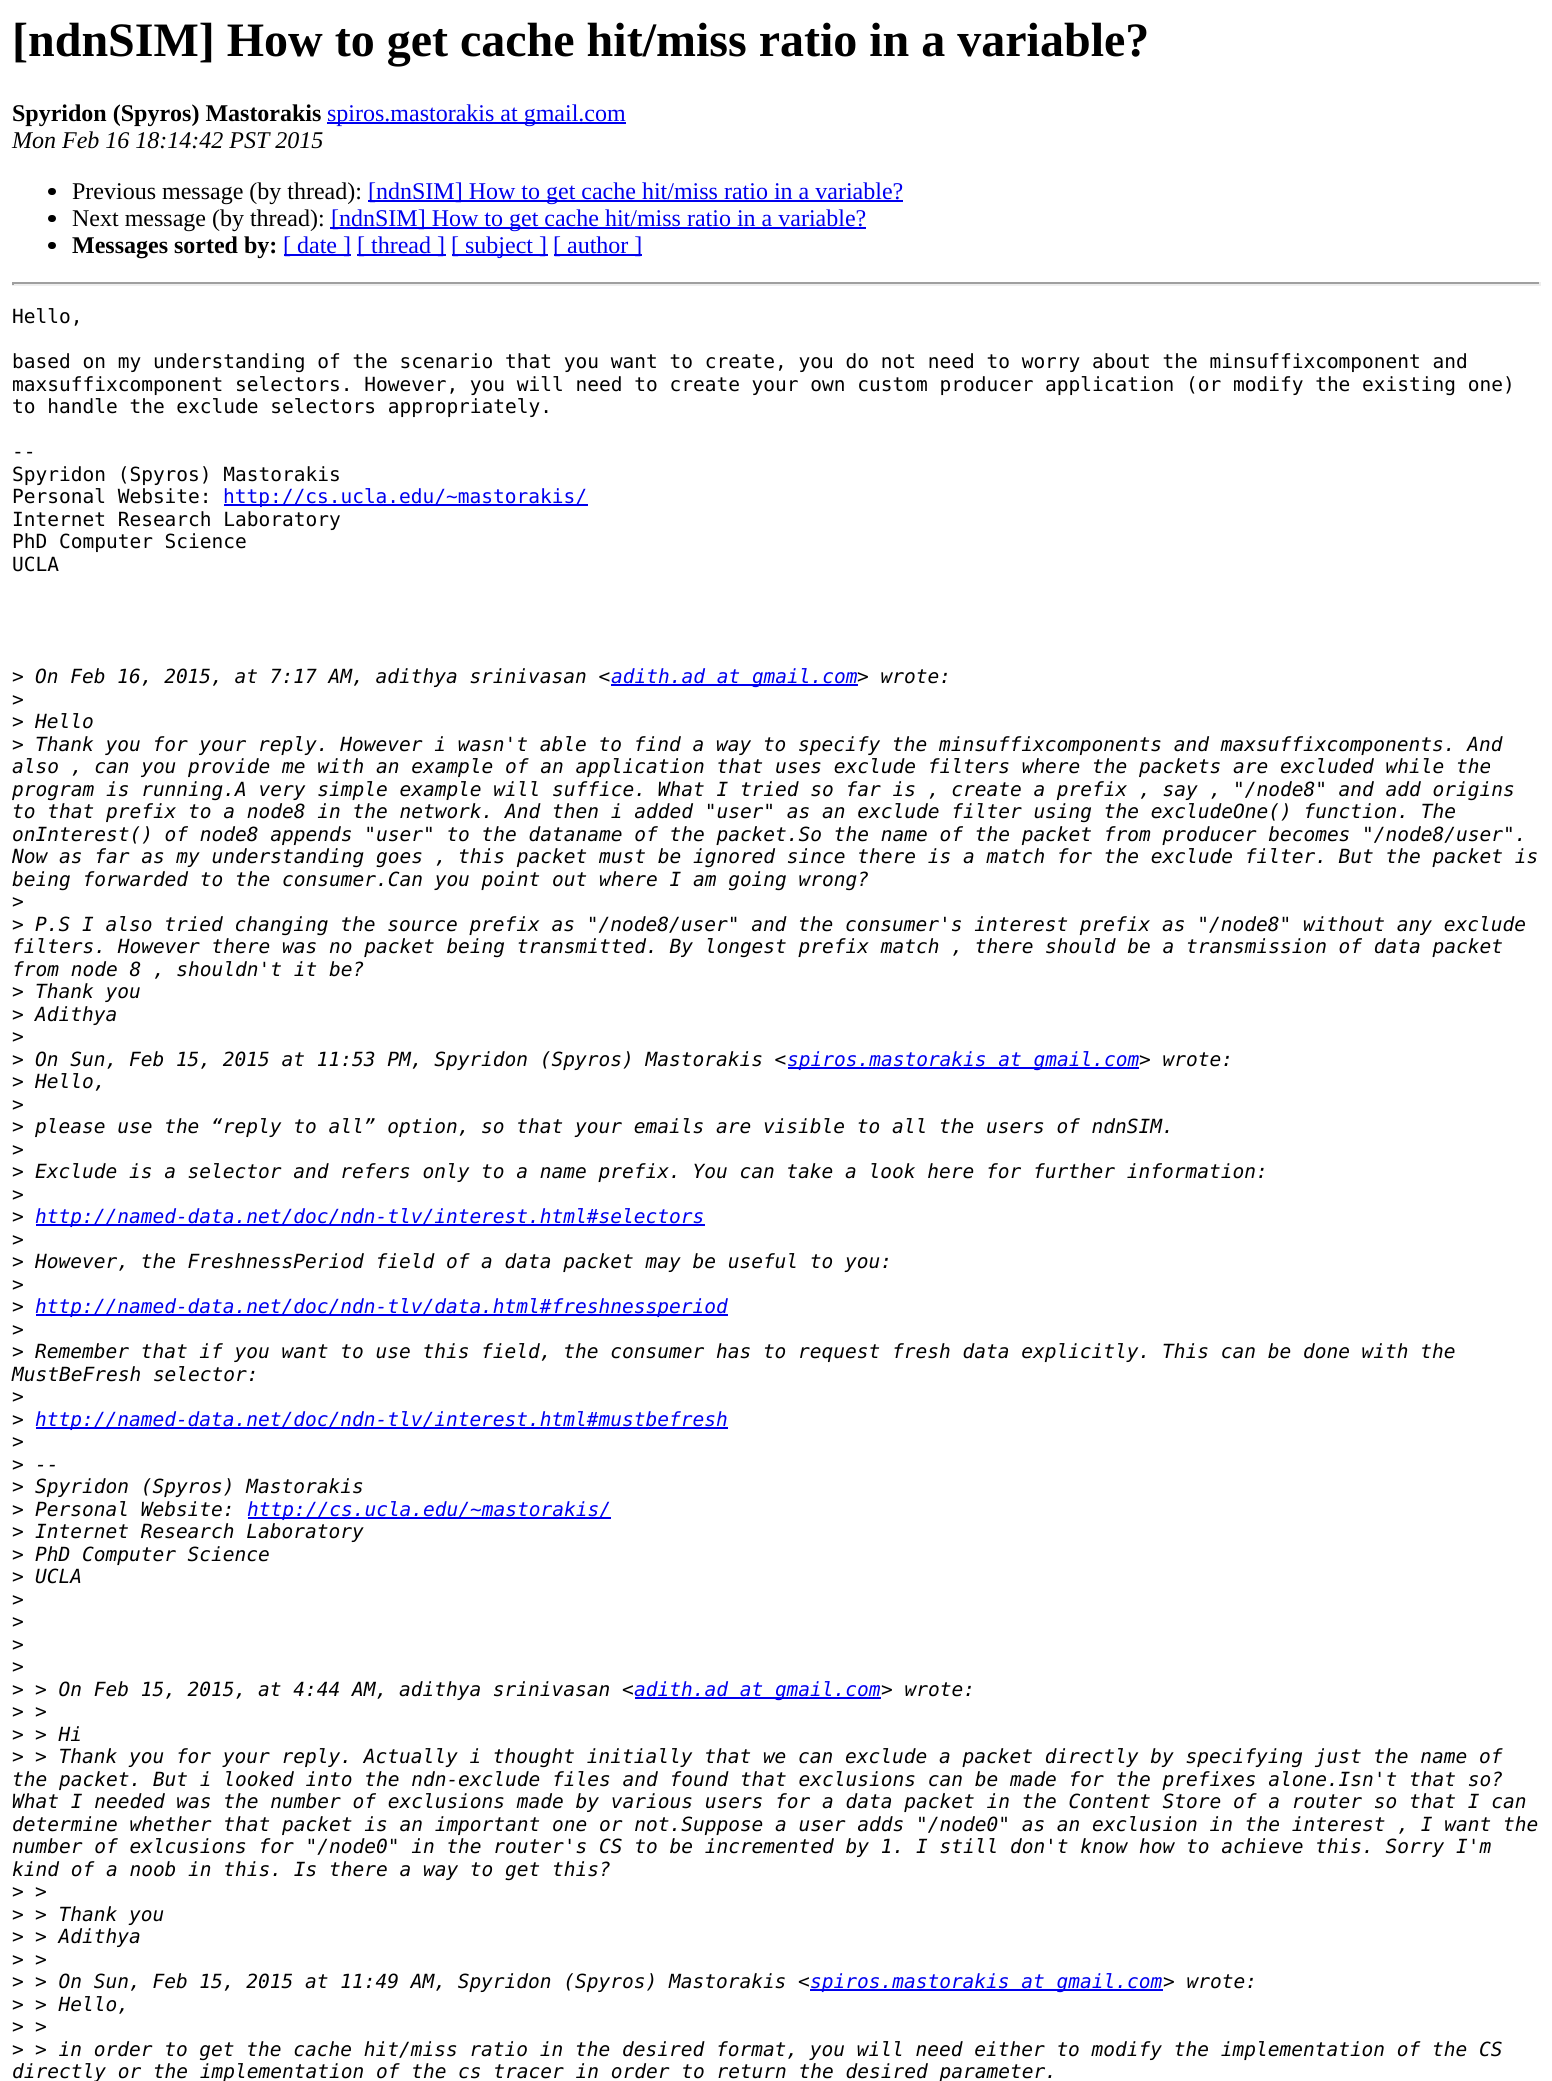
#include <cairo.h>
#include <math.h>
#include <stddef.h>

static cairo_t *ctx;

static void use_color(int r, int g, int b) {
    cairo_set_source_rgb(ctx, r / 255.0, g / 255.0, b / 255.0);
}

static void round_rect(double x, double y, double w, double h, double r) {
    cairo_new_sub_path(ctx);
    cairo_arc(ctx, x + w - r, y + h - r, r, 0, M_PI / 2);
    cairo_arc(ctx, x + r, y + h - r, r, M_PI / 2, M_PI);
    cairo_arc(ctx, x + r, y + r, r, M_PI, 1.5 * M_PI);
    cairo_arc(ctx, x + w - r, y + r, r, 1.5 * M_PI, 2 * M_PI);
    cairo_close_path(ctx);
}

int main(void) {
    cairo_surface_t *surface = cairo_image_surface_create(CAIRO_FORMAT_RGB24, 1552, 2081);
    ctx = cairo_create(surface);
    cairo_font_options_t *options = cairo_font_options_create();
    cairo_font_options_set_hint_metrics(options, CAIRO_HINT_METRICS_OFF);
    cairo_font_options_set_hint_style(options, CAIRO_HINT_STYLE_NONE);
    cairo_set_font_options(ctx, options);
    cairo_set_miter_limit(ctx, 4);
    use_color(255, 255, 255);
    cairo_paint(ctx);
    cairo_select_font_face(ctx, "Liberation Serif", CAIRO_FONT_SLANT_NORMAL, CAIRO_FONT_WEIGHT_BOLD);
    cairo_set_font_size(ctx, 48);
    use_color(0, 0, 0);
    cairo_move_to(ctx, 12, 56);
    cairo_show_text(ctx, "[ndnSIM] How to get cache hit/miss ratio in a variable?");
    cairo_set_font_size(ctx, 24);
    cairo_move_to(ctx, 12, 121);
    cairo_show_text(ctx, "Spyridon (Spyros) Mastorakis");
    use_color(0, 0, 238);
    cairo_rectangle(ctx, 327, 122, 299, 2);
    cairo_fill(ctx);
    cairo_select_font_face(ctx, "Liberation Serif", CAIRO_FONT_SLANT_NORMAL, CAIRO_FONT_WEIGHT_NORMAL);
    cairo_move_to(ctx, 327, 121);
    cairo_show_text(ctx, "spiros.mastorakis at gmail.com");
    cairo_select_font_face(ctx, "Liberation Serif", CAIRO_FONT_SLANT_ITALIC, CAIRO_FONT_WEIGHT_NORMAL);
    use_color(0, 0, 0);
    cairo_move_to(ctx, 12, 148);
    cairo_show_text(ctx, "Mon Feb 16 18:14:42 PST 2015");
    round_rect(48, 188, 8, 7, 3.5);
    cairo_fill(ctx);
    cairo_select_font_face(ctx, "Liberation Serif", CAIRO_FONT_SLANT_NORMAL, CAIRO_FONT_WEIGHT_NORMAL);
    cairo_move_to(ctx, 72, 199);
    cairo_show_text(ctx, "Previous message (by thread):");
    use_color(0, 0, 238);
    cairo_rectangle(ctx, 368, 200, 535, 2);
    cairo_fill(ctx);
    cairo_move_to(ctx, 368, 199);
    cairo_show_text(ctx, "[ndnSIM] How to get cache hit/miss ratio in a variable?");
    use_color(0, 0, 0);
    round_rect(48, 215, 8, 7, 3.5);
    cairo_fill(ctx);
    cairo_move_to(ctx, 72, 226);
    cairo_show_text(ctx, "Next message (by thread):");
    use_color(0, 0, 238);
    cairo_rectangle(ctx, 330, 227, 536, 2);
    cairo_fill(ctx);
    cairo_move_to(ctx, 331, 226);
    cairo_show_text(ctx, "[ndnSIM] How to get cache hit/miss ratio in a variable?");
    use_color(0, 0, 0);
    round_rect(48, 242, 8, 7, 3.5);
    cairo_fill(ctx);
    cairo_select_font_face(ctx, "Liberation Serif", CAIRO_FONT_SLANT_NORMAL, CAIRO_FONT_WEIGHT_BOLD);
    cairo_move_to(ctx, 72, 253);
    cairo_show_text(ctx, "Messages sorted by:");
    use_color(0, 0, 238);
    cairo_rectangle(ctx, 284, 254, 67, 2);
    cairo_fill(ctx);
    cairo_select_font_face(ctx, "Liberation Serif", CAIRO_FONT_SLANT_NORMAL, CAIRO_FONT_WEIGHT_NORMAL);
    cairo_move_to(ctx, 283, 253);
    cairo_show_text(ctx, "[ date ]");
    cairo_rectangle(ctx, 357, 254, 89, 2);
    cairo_fill(ctx);
    cairo_move_to(ctx, 357, 253);
    cairo_show_text(ctx, "[ thread ]");
    cairo_rectangle(ctx, 452, 254, 96, 2);
    cairo_fill(ctx);
    cairo_move_to(ctx, 451, 253);
    cairo_show_text(ctx, "[ subject ]");
    cairo_rectangle(ctx, 554, 254, 88, 2);
    cairo_fill(ctx);
    cairo_move_to(ctx, 553, 253);
    cairo_show_text(ctx, "[ author ]");
    use_color(159, 159, 159);
    cairo_rectangle(ctx, 12, 282, 1529, 2);
    cairo_fill(ctx);
    use_color(238, 238, 238);
    cairo_rectangle(ctx, 1539, 282, 2, 3);
    cairo_fill(ctx);
    cairo_rectangle(ctx, 12, 284, 1529, 2);
    cairo_fill(ctx);
    use_color(159, 159, 159);
    cairo_rectangle(ctx, 12, 282, 2, 3);
    cairo_fill(ctx);
    cairo_select_font_face(ctx, "DejaVu Sans Mono", CAIRO_FONT_SLANT_NORMAL, CAIRO_FONT_WEIGHT_NORMAL);
    cairo_set_font_size(ctx, 19.5);
    use_color(0, 0, 0);
    cairo_move_to(ctx, 12, 323);
    cairo_show_text(ctx, "Hello,");
    cairo_move_to(ctx, 12, 368);
    cairo_show_text(ctx, "based on my understanding of the scenario that you want to create, you do not need to worry about the minsuffixcomponent and");
    cairo_move_to(ctx, 12, 391);
    cairo_show_text(ctx, "maxsuffixcomponent selectors. However, you will need to create your own custom producer application (or modify the existing one)");
    cairo_move_to(ctx, 12, 413);
    cairo_show_text(ctx, "to handle the exclude selectors appropriately.");
    cairo_move_to(ctx, 12, 458);
    cairo_show_text(ctx, "--");
    cairo_move_to(ctx, 12, 481);
    cairo_show_text(ctx, "Spyridon (Spyros) Mastorakis");
    cairo_move_to(ctx, 12, 503);
    cairo_show_text(ctx, "Personal Website:");
    use_color(0, 0, 238);
    cairo_rectangle(ctx, 224, 504, 364, 2);
    cairo_fill(ctx);
    cairo_move_to(ctx, 223, 503);
    cairo_show_text(ctx, "http://cs.ucla.edu/~mastorakis/");
    use_color(0, 0, 0);
    cairo_move_to(ctx, 12, 526);
    cairo_show_text(ctx, "Internet Research Laboratory");
    cairo_move_to(ctx, 12, 548);
    cairo_show_text(ctx, "PhD Computer Science");
    cairo_move_to(ctx, 12, 571);
    cairo_show_text(ctx, "UCLA");
    cairo_move_to(ctx, 12, 683);
    cairo_show_text(ctx, ">");
    cairo_select_font_face(ctx, "DejaVu Sans Mono", CAIRO_FONT_SLANT_ITALIC, CAIRO_FONT_WEIGHT_NORMAL);
    cairo_move_to(ctx, 35, 683);
    cairo_show_text(ctx, "On Feb 16, 2015, at 7:17 AM, adithya srinivasan <");
    use_color(0, 0, 238);
    cairo_rectangle(ctx, 611, 684, 247, 2);
    cairo_fill(ctx);
    cairo_move_to(ctx, 611, 683);
    cairo_show_text(ctx, "adith.ad at gmail.com");
    use_color(0, 0, 0);
    cairo_move_to(ctx, 857, 683);
    cairo_show_text(ctx, "> wrote:");
    cairo_select_font_face(ctx, "DejaVu Sans Mono", CAIRO_FONT_SLANT_NORMAL, CAIRO_FONT_WEIGHT_NORMAL);
    cairo_move_to(ctx, 12, 706);
    cairo_show_text(ctx, ">");
    cairo_move_to(ctx, 12, 728);
    cairo_show_text(ctx, ">");
    cairo_select_font_face(ctx, "DejaVu Sans Mono", CAIRO_FONT_SLANT_ITALIC, CAIRO_FONT_WEIGHT_NORMAL);
    cairo_move_to(ctx, 35, 728);
    cairo_show_text(ctx, "Hello");
    cairo_select_font_face(ctx, "DejaVu Sans Mono", CAIRO_FONT_SLANT_NORMAL, CAIRO_FONT_WEIGHT_NORMAL);
    cairo_move_to(ctx, 12, 751);
    cairo_show_text(ctx, ">");
    cairo_select_font_face(ctx, "DejaVu Sans Mono", CAIRO_FONT_SLANT_ITALIC, CAIRO_FONT_WEIGHT_NORMAL);
    cairo_move_to(ctx, 35, 751);
    cairo_show_text(ctx, "Thank you for your reply. However i wasn't able to find a way to specify the minsuffixcomponents and maxsuffixcomponents. And");
    cairo_move_to(ctx, 12, 773);
    cairo_show_text(ctx, "also , can you provide me with an example of an application that uses exclude filters where the packets are excluded while the");
    cairo_move_to(ctx, 12, 796);
    cairo_show_text(ctx, "program is running.A very simple example will suffice. What I tried so far is , create a prefix , say , \"/node8\" and add origins");
    cairo_move_to(ctx, 12, 818);
    cairo_show_text(ctx, "to that prefix to a node8 in the network. And then i added \"user\" as an exclude filter using the excludeOne() function. The");
    cairo_move_to(ctx, 12, 841);
    cairo_show_text(ctx, "onInterest() of node8 appends \"user\" to the dataname of the packet.So the name of the packet from producer becomes \"/node8/user\".");
    cairo_move_to(ctx, 12, 863);
    cairo_show_text(ctx, "Now as far as my understanding goes , this packet must be ignored since there is a match for the exclude filter. But the packet is");
    cairo_move_to(ctx, 12, 886);
    cairo_show_text(ctx, "being forwarded to the consumer.Can you point out where I am going wrong?");
    cairo_select_font_face(ctx, "DejaVu Sans Mono", CAIRO_FONT_SLANT_NORMAL, CAIRO_FONT_WEIGHT_NORMAL);
    cairo_move_to(ctx, 12, 908);
    cairo_show_text(ctx, ">");
    cairo_move_to(ctx, 12, 931);
    cairo_show_text(ctx, ">");
    cairo_select_font_face(ctx, "DejaVu Sans Mono", CAIRO_FONT_SLANT_ITALIC, CAIRO_FONT_WEIGHT_NORMAL);
    cairo_move_to(ctx, 35, 931);
    cairo_show_text(ctx, "P.S I also tried changing the source prefix as \"/node8/user\" and the consumer's interest prefix as \"/node8\" without any exclude");
    cairo_move_to(ctx, 12, 953);
    cairo_show_text(ctx, "filters. However there was no packet being transmitted. By longest prefix match , there should be a transmission of data packet");
    cairo_move_to(ctx, 12, 976);
    cairo_show_text(ctx, "from node 8 , shouldn't it be?");
    cairo_select_font_face(ctx, "DejaVu Sans Mono", CAIRO_FONT_SLANT_NORMAL, CAIRO_FONT_WEIGHT_NORMAL);
    cairo_move_to(ctx, 12, 998);
    cairo_show_text(ctx, ">");
    cairo_select_font_face(ctx, "DejaVu Sans Mono", CAIRO_FONT_SLANT_ITALIC, CAIRO_FONT_WEIGHT_NORMAL);
    cairo_move_to(ctx, 35, 998);
    cairo_show_text(ctx, "Thank you");
    cairo_select_font_face(ctx, "DejaVu Sans Mono", CAIRO_FONT_SLANT_NORMAL, CAIRO_FONT_WEIGHT_NORMAL);
    cairo_move_to(ctx, 12, 1021);
    cairo_show_text(ctx, ">");
    cairo_select_font_face(ctx, "DejaVu Sans Mono", CAIRO_FONT_SLANT_ITALIC, CAIRO_FONT_WEIGHT_NORMAL);
    cairo_move_to(ctx, 35, 1021);
    cairo_show_text(ctx, "Adithya");
    cairo_select_font_face(ctx, "DejaVu Sans Mono", CAIRO_FONT_SLANT_NORMAL, CAIRO_FONT_WEIGHT_NORMAL);
    cairo_move_to(ctx, 12, 1043);
    cairo_show_text(ctx, ">");
    cairo_move_to(ctx, 12, 1066);
    cairo_show_text(ctx, ">");
    cairo_select_font_face(ctx, "DejaVu Sans Mono", CAIRO_FONT_SLANT_ITALIC, CAIRO_FONT_WEIGHT_NORMAL);
    cairo_move_to(ctx, 35, 1066);
    cairo_show_text(ctx, "On Sun, Feb 15, 2015 at 11:53 PM, Spyridon (Spyros) Mastorakis <");
    use_color(0, 0, 238);
    cairo_rectangle(ctx, 788, 1067, 351, 2);
    cairo_fill(ctx);
    cairo_move_to(ctx, 787, 1066);
    cairo_show_text(ctx, "spiros.mastorakis at gmail.com");
    use_color(0, 0, 0);
    cairo_move_to(ctx, 1139, 1066);
    cairo_show_text(ctx, "> wrote:");
    cairo_select_font_face(ctx, "DejaVu Sans Mono", CAIRO_FONT_SLANT_NORMAL, CAIRO_FONT_WEIGHT_NORMAL);
    cairo_move_to(ctx, 12, 1088);
    cairo_show_text(ctx, ">");
    cairo_select_font_face(ctx, "DejaVu Sans Mono", CAIRO_FONT_SLANT_ITALIC, CAIRO_FONT_WEIGHT_NORMAL);
    cairo_move_to(ctx, 35, 1088);
    cairo_show_text(ctx, "Hello,");
    cairo_select_font_face(ctx, "DejaVu Sans Mono", CAIRO_FONT_SLANT_NORMAL, CAIRO_FONT_WEIGHT_NORMAL);
    cairo_move_to(ctx, 12, 1111);
    cairo_show_text(ctx, ">");
    cairo_move_to(ctx, 12, 1133);
    cairo_show_text(ctx, ">");
    cairo_select_font_face(ctx, "DejaVu Sans Mono", CAIRO_FONT_SLANT_ITALIC, CAIRO_FONT_WEIGHT_NORMAL);
    cairo_move_to(ctx, 35, 1133);
    cairo_show_text(ctx, "please use the “reply to all” option, so that your emails are visible to all the users of ndnSIM.");
    cairo_select_font_face(ctx, "DejaVu Sans Mono", CAIRO_FONT_SLANT_NORMAL, CAIRO_FONT_WEIGHT_NORMAL);
    cairo_move_to(ctx, 12, 1156);
    cairo_show_text(ctx, ">");
    cairo_move_to(ctx, 12, 1178);
    cairo_show_text(ctx, ">");
    cairo_select_font_face(ctx, "DejaVu Sans Mono", CAIRO_FONT_SLANT_ITALIC, CAIRO_FONT_WEIGHT_NORMAL);
    cairo_move_to(ctx, 35, 1178);
    cairo_show_text(ctx, "Exclude is a selector and refers only to a name prefix. You can take a look here for further information:");
    cairo_select_font_face(ctx, "DejaVu Sans Mono", CAIRO_FONT_SLANT_NORMAL, CAIRO_FONT_WEIGHT_NORMAL);
    cairo_move_to(ctx, 12, 1201);
    cairo_show_text(ctx, ">");
    cairo_move_to(ctx, 12, 1223);
    cairo_show_text(ctx, ">");
    use_color(0, 0, 238);
    cairo_rectangle(ctx, 36, 1224, 669, 2);
    cairo_fill(ctx);
    cairo_select_font_face(ctx, "DejaVu Sans Mono", CAIRO_FONT_SLANT_ITALIC, CAIRO_FONT_WEIGHT_NORMAL);
    cairo_move_to(ctx, 35, 1223);
    cairo_show_text(ctx, "http://named-data.net/doc/ndn-tlv/interest.html#selectors");
    cairo_select_font_face(ctx, "DejaVu Sans Mono", CAIRO_FONT_SLANT_NORMAL, CAIRO_FONT_WEIGHT_NORMAL);
    use_color(0, 0, 0);
    cairo_move_to(ctx, 12, 1246);
    cairo_show_text(ctx, ">");
    cairo_move_to(ctx, 12, 1268);
    cairo_show_text(ctx, ">");
    cairo_select_font_face(ctx, "DejaVu Sans Mono", CAIRO_FONT_SLANT_ITALIC, CAIRO_FONT_WEIGHT_NORMAL);
    cairo_move_to(ctx, 35, 1268);
    cairo_show_text(ctx, "However, the FreshnessPeriod field of a data packet may be useful to you:");
    cairo_select_font_face(ctx, "DejaVu Sans Mono", CAIRO_FONT_SLANT_NORMAL, CAIRO_FONT_WEIGHT_NORMAL);
    cairo_move_to(ctx, 12, 1291);
    cairo_show_text(ctx, ">");
    cairo_move_to(ctx, 12, 1313);
    cairo_show_text(ctx, ">");
    use_color(0, 0, 238);
    cairo_rectangle(ctx, 36, 1314, 692, 2);
    cairo_fill(ctx);
    cairo_select_font_face(ctx, "DejaVu Sans Mono", CAIRO_FONT_SLANT_ITALIC, CAIRO_FONT_WEIGHT_NORMAL);
    cairo_move_to(ctx, 35, 1313);
    cairo_show_text(ctx, "http://named-data.net/doc/ndn-tlv/data.html#freshnessperiod");
    cairo_select_font_face(ctx, "DejaVu Sans Mono", CAIRO_FONT_SLANT_NORMAL, CAIRO_FONT_WEIGHT_NORMAL);
    use_color(0, 0, 0);
    cairo_move_to(ctx, 12, 1336);
    cairo_show_text(ctx, ">");
    cairo_move_to(ctx, 12, 1358);
    cairo_show_text(ctx, ">");
    cairo_select_font_face(ctx, "DejaVu Sans Mono", CAIRO_FONT_SLANT_ITALIC, CAIRO_FONT_WEIGHT_NORMAL);
    cairo_move_to(ctx, 35, 1358);
    cairo_show_text(ctx, "Remember that if you want to use this field, the consumer has to request fresh data explicitly. This can be done with the");
    cairo_move_to(ctx, 12, 1381);
    cairo_show_text(ctx, "MustBeFresh selector:");
    cairo_select_font_face(ctx, "DejaVu Sans Mono", CAIRO_FONT_SLANT_NORMAL, CAIRO_FONT_WEIGHT_NORMAL);
    cairo_move_to(ctx, 12, 1403);
    cairo_show_text(ctx, ">");
    cairo_move_to(ctx, 12, 1426);
    cairo_show_text(ctx, ">");
    use_color(0, 0, 238);
    cairo_rectangle(ctx, 36, 1427, 692, 2);
    cairo_fill(ctx);
    cairo_select_font_face(ctx, "DejaVu Sans Mono", CAIRO_FONT_SLANT_ITALIC, CAIRO_FONT_WEIGHT_NORMAL);
    cairo_move_to(ctx, 35, 1426);
    cairo_show_text(ctx, "http://named-data.net/doc/ndn-tlv/interest.html#mustbefresh");
    cairo_select_font_face(ctx, "DejaVu Sans Mono", CAIRO_FONT_SLANT_NORMAL, CAIRO_FONT_WEIGHT_NORMAL);
    use_color(0, 0, 0);
    cairo_move_to(ctx, 12, 1448);
    cairo_show_text(ctx, ">");
    cairo_move_to(ctx, 12, 1471);
    cairo_show_text(ctx, ">");
    cairo_select_font_face(ctx, "DejaVu Sans Mono", CAIRO_FONT_SLANT_ITALIC, CAIRO_FONT_WEIGHT_NORMAL);
    cairo_move_to(ctx, 35, 1471);
    cairo_show_text(ctx, "--");
    cairo_select_font_face(ctx, "DejaVu Sans Mono", CAIRO_FONT_SLANT_NORMAL, CAIRO_FONT_WEIGHT_NORMAL);
    cairo_move_to(ctx, 12, 1493);
    cairo_show_text(ctx, ">");
    cairo_select_font_face(ctx, "DejaVu Sans Mono", CAIRO_FONT_SLANT_ITALIC, CAIRO_FONT_WEIGHT_NORMAL);
    cairo_move_to(ctx, 35, 1493);
    cairo_show_text(ctx, "Spyridon (Spyros) Mastorakis");
    cairo_select_font_face(ctx, "DejaVu Sans Mono", CAIRO_FONT_SLANT_NORMAL, CAIRO_FONT_WEIGHT_NORMAL);
    cairo_move_to(ctx, 12, 1516);
    cairo_show_text(ctx, ">");
    cairo_select_font_face(ctx, "DejaVu Sans Mono", CAIRO_FONT_SLANT_ITALIC, CAIRO_FONT_WEIGHT_NORMAL);
    cairo_move_to(ctx, 35, 1516);
    cairo_show_text(ctx, "Personal Website:");
    use_color(0, 0, 238);
    cairo_rectangle(ctx, 248, 1517, 363, 2);
    cairo_fill(ctx);
    cairo_move_to(ctx, 247, 1516);
    cairo_show_text(ctx, "http://cs.ucla.edu/~mastorakis/");
    cairo_select_font_face(ctx, "DejaVu Sans Mono", CAIRO_FONT_SLANT_NORMAL, CAIRO_FONT_WEIGHT_NORMAL);
    use_color(0, 0, 0);
    cairo_move_to(ctx, 12, 1538);
    cairo_show_text(ctx, ">");
    cairo_select_font_face(ctx, "DejaVu Sans Mono", CAIRO_FONT_SLANT_ITALIC, CAIRO_FONT_WEIGHT_NORMAL);
    cairo_move_to(ctx, 35, 1538);
    cairo_show_text(ctx, "Internet Research Laboratory");
    cairo_select_font_face(ctx, "DejaVu Sans Mono", CAIRO_FONT_SLANT_NORMAL, CAIRO_FONT_WEIGHT_NORMAL);
    cairo_move_to(ctx, 12, 1561);
    cairo_show_text(ctx, ">");
    cairo_select_font_face(ctx, "DejaVu Sans Mono", CAIRO_FONT_SLANT_ITALIC, CAIRO_FONT_WEIGHT_NORMAL);
    cairo_move_to(ctx, 35, 1561);
    cairo_show_text(ctx, "PhD Computer Science");
    cairo_select_font_face(ctx, "DejaVu Sans Mono", CAIRO_FONT_SLANT_NORMAL, CAIRO_FONT_WEIGHT_NORMAL);
    cairo_move_to(ctx, 12, 1583);
    cairo_show_text(ctx, ">");
    cairo_select_font_face(ctx, "DejaVu Sans Mono", CAIRO_FONT_SLANT_ITALIC, CAIRO_FONT_WEIGHT_NORMAL);
    cairo_move_to(ctx, 35, 1583);
    cairo_show_text(ctx, "UCLA");
    cairo_select_font_face(ctx, "DejaVu Sans Mono", CAIRO_FONT_SLANT_NORMAL, CAIRO_FONT_WEIGHT_NORMAL);
    cairo_move_to(ctx, 12, 1606);
    cairo_show_text(ctx, ">");
    cairo_move_to(ctx, 12, 1628);
    cairo_show_text(ctx, ">");
    cairo_move_to(ctx, 12, 1651);
    cairo_show_text(ctx, ">");
    cairo_move_to(ctx, 12, 1673);
    cairo_show_text(ctx, ">");
    cairo_move_to(ctx, 12, 1696);
    cairo_show_text(ctx, ">");
    cairo_select_font_face(ctx, "DejaVu Sans Mono", CAIRO_FONT_SLANT_ITALIC, CAIRO_FONT_WEIGHT_NORMAL);
    cairo_move_to(ctx, 35, 1696);
    cairo_show_text(ctx, "> On Feb 15, 2015, at 4:44 AM, adithya srinivasan <");
    use_color(0, 0, 238);
    cairo_rectangle(ctx, 635, 1697, 246, 2);
    cairo_fill(ctx);
    cairo_move_to(ctx, 634, 1696);
    cairo_show_text(ctx, "adith.ad at gmail.com");
    use_color(0, 0, 0);
    cairo_move_to(ctx, 881, 1696);
    cairo_show_text(ctx, "> wrote:");
    cairo_select_font_face(ctx, "DejaVu Sans Mono", CAIRO_FONT_SLANT_NORMAL, CAIRO_FONT_WEIGHT_NORMAL);
    cairo_move_to(ctx, 12, 1718);
    cairo_show_text(ctx, ">");
    cairo_select_font_face(ctx, "DejaVu Sans Mono", CAIRO_FONT_SLANT_ITALIC, CAIRO_FONT_WEIGHT_NORMAL);
    cairo_move_to(ctx, 35, 1718);
    cairo_show_text(ctx, ">");
    cairo_select_font_face(ctx, "DejaVu Sans Mono", CAIRO_FONT_SLANT_NORMAL, CAIRO_FONT_WEIGHT_NORMAL);
    cairo_move_to(ctx, 12, 1741);
    cairo_show_text(ctx, ">");
    cairo_select_font_face(ctx, "DejaVu Sans Mono", CAIRO_FONT_SLANT_ITALIC, CAIRO_FONT_WEIGHT_NORMAL);
    cairo_move_to(ctx, 35, 1741);
    cairo_show_text(ctx, "> Hi");
    cairo_select_font_face(ctx, "DejaVu Sans Mono", CAIRO_FONT_SLANT_NORMAL, CAIRO_FONT_WEIGHT_NORMAL);
    cairo_move_to(ctx, 12, 1763);
    cairo_show_text(ctx, ">");
    cairo_select_font_face(ctx, "DejaVu Sans Mono", CAIRO_FONT_SLANT_ITALIC, CAIRO_FONT_WEIGHT_NORMAL);
    cairo_move_to(ctx, 35, 1763);
    cairo_show_text(ctx, "> Thank you for your reply. Actually i thought initially that we can exclude a packet directly by specifying just the name of");
    cairo_move_to(ctx, 12, 1786);
    cairo_show_text(ctx, "the packet. But i looked into the ndn-exclude files and found that exclusions can be made for the prefixes alone.Isn't that so?");
    cairo_move_to(ctx, 12, 1808);
    cairo_show_text(ctx, "What I needed was the number of exclusions made by various users for a data packet in the Content Store of a router so that I can");
    cairo_move_to(ctx, 12, 1831);
    cairo_show_text(ctx, "determine whether that packet is an important one or not.Suppose a user adds \"/node0\" as an exclusion in the interest , I want the");
    cairo_move_to(ctx, 12, 1853);
    cairo_show_text(ctx, "number of exlcusions for \"/node0\" in the router's CS to be incremented by 1. I still don't know how to achieve this. Sorry I'm");
    cairo_move_to(ctx, 12, 1876);
    cairo_show_text(ctx, "kind of a noob in this. Is there a way to get this?");
    cairo_select_font_face(ctx, "DejaVu Sans Mono", CAIRO_FONT_SLANT_NORMAL, CAIRO_FONT_WEIGHT_NORMAL);
    cairo_move_to(ctx, 12, 1898);
    cairo_show_text(ctx, ">");
    cairo_select_font_face(ctx, "DejaVu Sans Mono", CAIRO_FONT_SLANT_ITALIC, CAIRO_FONT_WEIGHT_NORMAL);
    cairo_move_to(ctx, 35, 1898);
    cairo_show_text(ctx, ">");
    cairo_select_font_face(ctx, "DejaVu Sans Mono", CAIRO_FONT_SLANT_NORMAL, CAIRO_FONT_WEIGHT_NORMAL);
    cairo_move_to(ctx, 12, 1921);
    cairo_show_text(ctx, ">");
    cairo_select_font_face(ctx, "DejaVu Sans Mono", CAIRO_FONT_SLANT_ITALIC, CAIRO_FONT_WEIGHT_NORMAL);
    cairo_move_to(ctx, 35, 1921);
    cairo_show_text(ctx, "> Thank you");
    cairo_select_font_face(ctx, "DejaVu Sans Mono", CAIRO_FONT_SLANT_NORMAL, CAIRO_FONT_WEIGHT_NORMAL);
    cairo_move_to(ctx, 12, 1943);
    cairo_show_text(ctx, ">");
    cairo_select_font_face(ctx, "DejaVu Sans Mono", CAIRO_FONT_SLANT_ITALIC, CAIRO_FONT_WEIGHT_NORMAL);
    cairo_move_to(ctx, 35, 1943);
    cairo_show_text(ctx, "> Adithya");
    cairo_select_font_face(ctx, "DejaVu Sans Mono", CAIRO_FONT_SLANT_NORMAL, CAIRO_FONT_WEIGHT_NORMAL);
    cairo_move_to(ctx, 12, 1966);
    cairo_show_text(ctx, ">");
    cairo_select_font_face(ctx, "DejaVu Sans Mono", CAIRO_FONT_SLANT_ITALIC, CAIRO_FONT_WEIGHT_NORMAL);
    cairo_move_to(ctx, 35, 1966);
    cairo_show_text(ctx, ">");
    cairo_select_font_face(ctx, "DejaVu Sans Mono", CAIRO_FONT_SLANT_NORMAL, CAIRO_FONT_WEIGHT_NORMAL);
    cairo_move_to(ctx, 12, 1988);
    cairo_show_text(ctx, ">");
    cairo_select_font_face(ctx, "DejaVu Sans Mono", CAIRO_FONT_SLANT_ITALIC, CAIRO_FONT_WEIGHT_NORMAL);
    cairo_move_to(ctx, 35, 1988);
    cairo_show_text(ctx, "> On Sun, Feb 15, 2015 at 11:49 AM, Spyridon (Spyros) Mastorakis <");
    use_color(0, 0, 238);
    cairo_rectangle(ctx, 810, 1989, 353, 2);
    cairo_fill(ctx);
    cairo_move_to(ctx, 810, 1988);
    cairo_show_text(ctx, "spiros.mastorakis at gmail.com");
    use_color(0, 0, 0);
    cairo_move_to(ctx, 1163, 1988);
    cairo_show_text(ctx, "> wrote:");
    cairo_select_font_face(ctx, "DejaVu Sans Mono", CAIRO_FONT_SLANT_NORMAL, CAIRO_FONT_WEIGHT_NORMAL);
    cairo_move_to(ctx, 12, 2011);
    cairo_show_text(ctx, ">");
    cairo_select_font_face(ctx, "DejaVu Sans Mono", CAIRO_FONT_SLANT_ITALIC, CAIRO_FONT_WEIGHT_NORMAL);
    cairo_move_to(ctx, 35, 2011);
    cairo_show_text(ctx, "> Hello,");
    cairo_select_font_face(ctx, "DejaVu Sans Mono", CAIRO_FONT_SLANT_NORMAL, CAIRO_FONT_WEIGHT_NORMAL);
    cairo_move_to(ctx, 12, 2033);
    cairo_show_text(ctx, ">");
    cairo_select_font_face(ctx, "DejaVu Sans Mono", CAIRO_FONT_SLANT_ITALIC, CAIRO_FONT_WEIGHT_NORMAL);
    cairo_move_to(ctx, 35, 2033);
    cairo_show_text(ctx, ">");
    cairo_select_font_face(ctx, "DejaVu Sans Mono", CAIRO_FONT_SLANT_NORMAL, CAIRO_FONT_WEIGHT_NORMAL);
    cairo_move_to(ctx, 12, 2056);
    cairo_show_text(ctx, ">");
    cairo_select_font_face(ctx, "DejaVu Sans Mono", CAIRO_FONT_SLANT_ITALIC, CAIRO_FONT_WEIGHT_NORMAL);
    cairo_move_to(ctx, 35, 2056);
    cairo_show_text(ctx, "> in order to get the cache hit/miss ratio in the desired format, you will need either to modify the implementation of the CS");
    cairo_move_to(ctx, 12, 2078);
    cairo_show_text(ctx, "directly or the implementation of the cs tracer in order to return the desired parameter.");
    cairo_surface_write_to_png(surface, "result.png");
    cairo_font_options_destroy(options);
    cairo_destroy(ctx);
    cairo_surface_destroy(surface);
    return 0;
}
